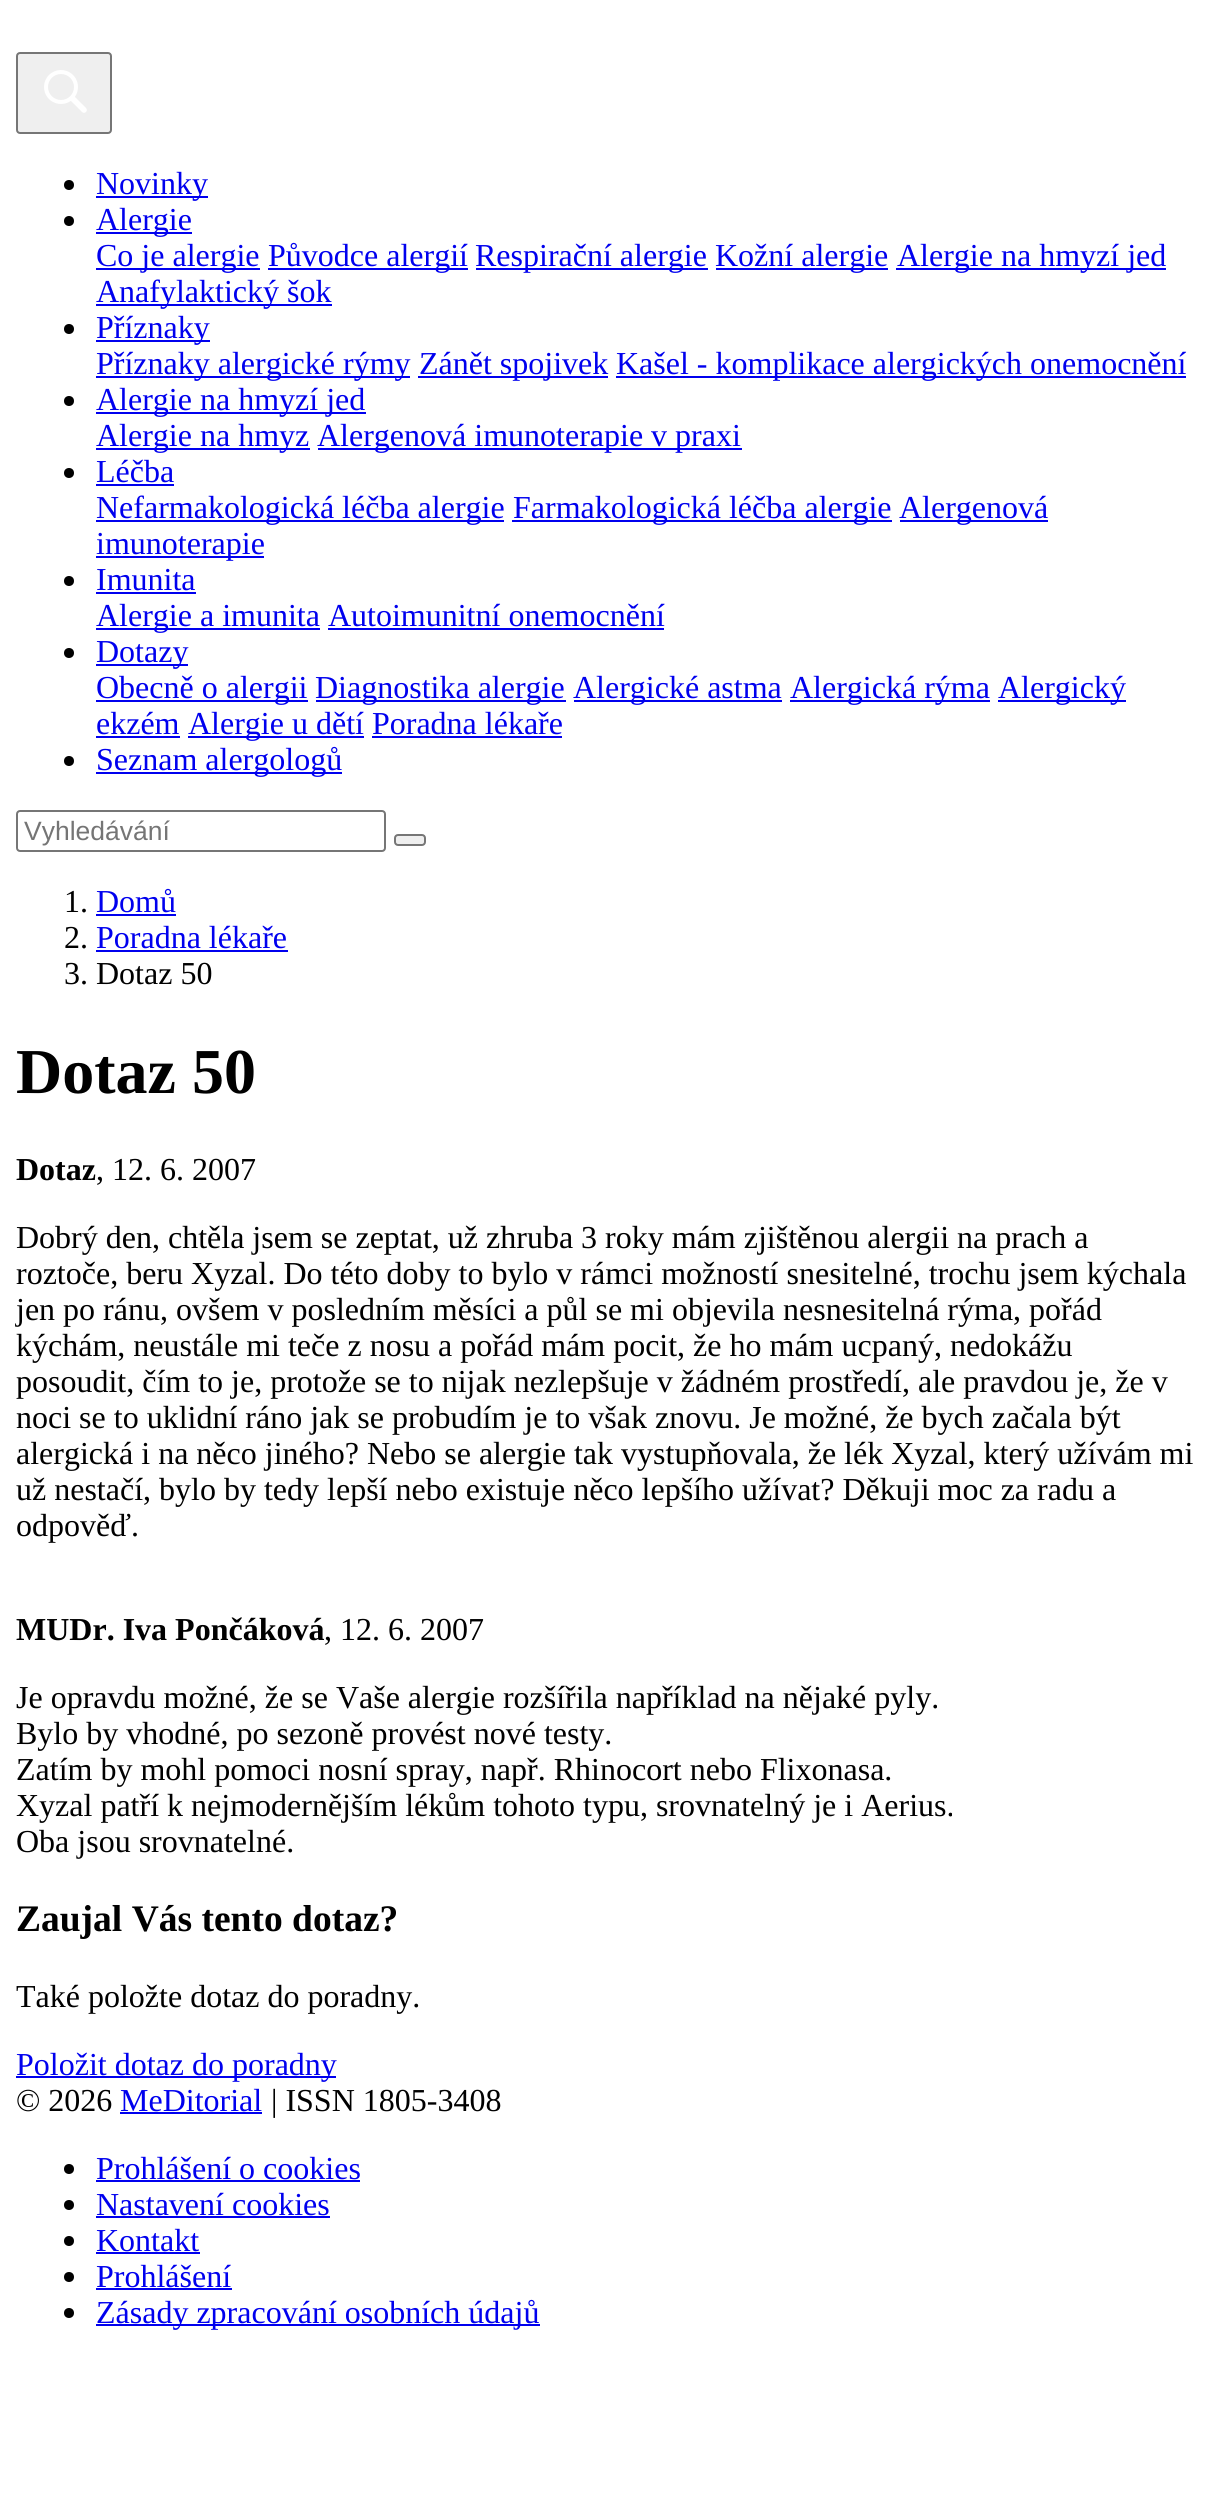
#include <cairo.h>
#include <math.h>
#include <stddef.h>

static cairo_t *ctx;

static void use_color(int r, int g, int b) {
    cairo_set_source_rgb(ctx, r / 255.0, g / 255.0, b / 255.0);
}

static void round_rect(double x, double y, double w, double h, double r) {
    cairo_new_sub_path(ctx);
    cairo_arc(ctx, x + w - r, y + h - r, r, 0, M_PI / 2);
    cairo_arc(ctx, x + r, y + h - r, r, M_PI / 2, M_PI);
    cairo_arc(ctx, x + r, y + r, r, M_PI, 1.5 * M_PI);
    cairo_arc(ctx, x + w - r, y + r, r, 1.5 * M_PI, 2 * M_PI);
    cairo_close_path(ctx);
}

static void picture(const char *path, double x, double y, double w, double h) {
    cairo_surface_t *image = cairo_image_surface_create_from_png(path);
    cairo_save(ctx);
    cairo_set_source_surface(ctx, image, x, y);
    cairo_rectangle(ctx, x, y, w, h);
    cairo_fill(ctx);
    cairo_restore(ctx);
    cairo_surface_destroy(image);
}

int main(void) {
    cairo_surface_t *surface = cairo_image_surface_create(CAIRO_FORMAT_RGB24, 1213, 2508);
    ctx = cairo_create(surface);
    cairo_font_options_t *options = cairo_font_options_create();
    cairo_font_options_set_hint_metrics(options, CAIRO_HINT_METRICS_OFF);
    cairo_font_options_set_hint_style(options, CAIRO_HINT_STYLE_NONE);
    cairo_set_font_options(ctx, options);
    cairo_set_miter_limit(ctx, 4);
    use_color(255, 255, 255);
    cairo_paint(ctx);
    use_color(239, 239, 239);
    round_rect(17, 53, 94, 80, 3);
    cairo_fill_preserve(ctx);
    use_color(118, 118, 118);
    cairo_stroke(ctx);
    picture("img1.png", 44, 70, 43, 43);
    use_color(0, 0, 0);
    cairo_arc(ctx, 69, 185, 5, 0, 2 * M_PI);
    cairo_fill(ctx);
    use_color(0, 0, 238);
    cairo_rectangle(ctx, 96, 196, 112, 2);
    cairo_fill(ctx);
    cairo_select_font_face(ctx, "Liberation Serif", CAIRO_FONT_SLANT_NORMAL, CAIRO_FONT_WEIGHT_NORMAL);
    cairo_set_font_size(ctx, 32);
    cairo_move_to(ctx, 96, 194);
    cairo_show_text(ctx, "Novinky");
    use_color(0, 0, 0);
    cairo_new_path(ctx);
    cairo_arc(ctx, 69, 221, 5, 0, 2 * M_PI);
    cairo_fill(ctx);
    use_color(0, 0, 238);
    cairo_rectangle(ctx, 96, 232, 96, 2);
    cairo_fill(ctx);
    cairo_move_to(ctx, 96, 230);
    cairo_show_text(ctx, "Alergie");
    cairo_rectangle(ctx, 96, 268, 164, 2);
    cairo_fill(ctx);
    cairo_move_to(ctx, 96, 266);
    cairo_show_text(ctx, "Co je alergie");
    cairo_rectangle(ctx, 268, 268, 200, 2);
    cairo_fill(ctx);
    cairo_move_to(ctx, 268, 266);
    cairo_show_text(ctx, "Původce alergií");
    cairo_rectangle(ctx, 476, 268, 232, 2);
    cairo_fill(ctx);
    cairo_move_to(ctx, 475, 266);
    cairo_show_text(ctx, "Respirační alergie");
    cairo_rectangle(ctx, 716, 268, 172, 2);
    cairo_fill(ctx);
    cairo_move_to(ctx, 715, 266);
    cairo_show_text(ctx, "Kožní alergie");
    cairo_rectangle(ctx, 896, 268, 270, 2);
    cairo_fill(ctx);
    cairo_move_to(ctx, 897, 266);
    cairo_show_text(ctx, "Alergie na hmyzí jed");
    cairo_rectangle(ctx, 96, 304, 236, 2);
    cairo_fill(ctx);
    cairo_move_to(ctx, 96, 302);
    cairo_show_text(ctx, "Anafylaktický šok");
    use_color(0, 0, 0);
    cairo_new_path(ctx);
    cairo_arc(ctx, 69, 329, 5, 0, 2 * M_PI);
    cairo_fill(ctx);
    use_color(0, 0, 238);
    cairo_rectangle(ctx, 96, 340, 114, 2);
    cairo_fill(ctx);
    cairo_move_to(ctx, 96, 338);
    cairo_show_text(ctx, "Příznaky");
    cairo_rectangle(ctx, 96, 376, 314, 2);
    cairo_fill(ctx);
    cairo_move_to(ctx, 96, 374);
    cairo_show_text(ctx, "Příznaky alergické rýmy");
    cairo_rectangle(ctx, 418, 376, 190, 2);
    cairo_fill(ctx);
    cairo_move_to(ctx, 419, 374);
    cairo_show_text(ctx, "Zánět spojivek");
    cairo_rectangle(ctx, 616, 376, 570, 2);
    cairo_fill(ctx);
    cairo_move_to(ctx, 616, 374);
    cairo_show_text(ctx, "Kašel - komplikace alergických onemocnění");
    use_color(0, 0, 0);
    cairo_new_path(ctx);
    cairo_arc(ctx, 69, 401, 5, 0, 2 * M_PI);
    cairo_fill(ctx);
    use_color(0, 0, 238);
    cairo_rectangle(ctx, 96, 412, 270, 2);
    cairo_fill(ctx);
    cairo_move_to(ctx, 96, 410);
    cairo_show_text(ctx, "Alergie na hmyzí jed");
    cairo_rectangle(ctx, 96, 448, 214, 2);
    cairo_fill(ctx);
    cairo_move_to(ctx, 96, 446);
    cairo_show_text(ctx, "Alergie na hmyz");
    cairo_rectangle(ctx, 318, 448, 424, 2);
    cairo_fill(ctx);
    cairo_move_to(ctx, 317, 446);
    cairo_show_text(ctx, "Alergenová imunoterapie v praxi");
    use_color(0, 0, 0);
    cairo_new_path(ctx);
    cairo_arc(ctx, 69, 473, 5, 0, 2 * M_PI);
    cairo_fill(ctx);
    use_color(0, 0, 238);
    cairo_move_to(ctx, 96, 482);
    cairo_show_text(ctx, "Léčba");
    cairo_rectangle(ctx, 96, 484, 78, 2);
    cairo_fill(ctx);
    cairo_rectangle(ctx, 96, 520, 408, 2);
    cairo_fill(ctx);
    cairo_move_to(ctx, 96, 518);
    cairo_show_text(ctx, "Nefarmakologická léčba alergie");
    cairo_rectangle(ctx, 512, 520, 380, 2);
    cairo_fill(ctx);
    cairo_move_to(ctx, 513, 518);
    cairo_show_text(ctx, "Farmakologická léčba alergie");
    cairo_rectangle(ctx, 900, 520, 148, 2);
    cairo_fill(ctx);
    cairo_move_to(ctx, 899, 518);
    cairo_show_text(ctx, "Alergenová");
    cairo_rectangle(ctx, 96, 556, 168, 2);
    cairo_fill(ctx);
    cairo_move_to(ctx, 96, 554);
    cairo_show_text(ctx, "imunoterapie");
    use_color(0, 0, 0);
    cairo_new_path(ctx);
    cairo_arc(ctx, 69, 581, 5, 0, 2 * M_PI);
    cairo_fill(ctx);
    use_color(0, 0, 238);
    cairo_move_to(ctx, 96, 590);
    cairo_show_text(ctx, "Imunita");
    cairo_rectangle(ctx, 96, 592, 100, 2);
    cairo_fill(ctx);
    cairo_rectangle(ctx, 96, 628, 224, 2);
    cairo_fill(ctx);
    cairo_move_to(ctx, 96, 626);
    cairo_show_text(ctx, "Alergie a imunita Autoimunitní onemocnění");
    cairo_rectangle(ctx, 328, 628, 336, 2);
    cairo_fill(ctx);
    use_color(0, 0, 0);
    cairo_arc(ctx, 69, 653, 5, 0, 2 * M_PI);
    cairo_fill(ctx);
    use_color(0, 0, 238);
    cairo_rectangle(ctx, 96, 664, 92, 2);
    cairo_fill(ctx);
    cairo_move_to(ctx, 96, 662);
    cairo_show_text(ctx, "Dotazy");
    cairo_rectangle(ctx, 96, 700, 212, 2);
    cairo_fill(ctx);
    cairo_move_to(ctx, 96, 698);
    cairo_show_text(ctx, "Obecně o alergii");
    cairo_rectangle(ctx, 316, 700, 250, 2);
    cairo_fill(ctx);
    cairo_move_to(ctx, 315, 698);
    cairo_show_text(ctx, "Diagnostika alergie");
    cairo_rectangle(ctx, 574, 700, 208, 2);
    cairo_fill(ctx);
    cairo_move_to(ctx, 573, 698);
    cairo_show_text(ctx, "Alergické astma");
    cairo_rectangle(ctx, 790, 700, 200, 2);
    cairo_fill(ctx);
    cairo_move_to(ctx, 790, 698);
    cairo_show_text(ctx, "Alergická rýma");
    cairo_rectangle(ctx, 998, 700, 128, 2);
    cairo_fill(ctx);
    cairo_move_to(ctx, 998, 698);
    cairo_show_text(ctx, "Alergický");
    cairo_move_to(ctx, 96, 734);
    cairo_show_text(ctx, "ekzém");
    cairo_rectangle(ctx, 96, 736, 84, 2);
    cairo_fill(ctx);
    cairo_rectangle(ctx, 188, 736, 176, 2);
    cairo_fill(ctx);
    cairo_move_to(ctx, 188, 734);
    cairo_show_text(ctx, "Alergie u dětí Poradna lékaře");
    cairo_rectangle(ctx, 372, 736, 190, 2);
    cairo_fill(ctx);
    use_color(0, 0, 0);
    cairo_arc(ctx, 69, 761, 5, 0, 2 * M_PI);
    cairo_fill(ctx);
    use_color(0, 0, 238);
    cairo_rectangle(ctx, 96, 772, 246, 2);
    cairo_fill(ctx);
    cairo_move_to(ctx, 96, 770);
    cairo_show_text(ctx, "Seznam alergologů");
    round_rect(17, 811, 368, 40, 3);
    use_color(118, 118, 118);
    cairo_stroke(ctx);
    cairo_select_font_face(ctx, "Liberation Sans", CAIRO_FONT_SLANT_NORMAL, CAIRO_FONT_WEIGHT_NORMAL);
    cairo_set_font_size(ctx, 26.5);
    use_color(117, 117, 117);
    cairo_move_to(ctx, 24, 840);
    cairo_show_text(ctx, "Vyhledávání");
    use_color(239, 239, 239);
    round_rect(395, 835, 30, 10, 3);
    cairo_fill_preserve(ctx);
    use_color(118, 118, 118);
    cairo_stroke(ctx);
    cairo_select_font_face(ctx, "Liberation Serif", CAIRO_FONT_SLANT_NORMAL, CAIRO_FONT_WEIGHT_NORMAL);
    cairo_set_font_size(ctx, 32);
    use_color(0, 0, 0);
    cairo_move_to(ctx, 64, 912);
    cairo_show_text(ctx, "1.");
    use_color(0, 0, 238);
    cairo_move_to(ctx, 96, 912);
    cairo_show_text(ctx, "Domů");
    cairo_rectangle(ctx, 96, 914, 80, 2);
    cairo_fill(ctx);
    use_color(0, 0, 0);
    cairo_move_to(ctx, 64, 948);
    cairo_show_text(ctx, "2.");
    use_color(0, 0, 238);
    cairo_move_to(ctx, 96, 948);
    cairo_show_text(ctx, "Poradna lékaře");
    cairo_rectangle(ctx, 96, 950, 192, 2);
    cairo_fill(ctx);
    use_color(0, 0, 0);
    cairo_move_to(ctx, 64, 984);
    cairo_show_text(ctx, "3. Dotaz 50");
    cairo_select_font_face(ctx, "Liberation Serif", CAIRO_FONT_SLANT_NORMAL, CAIRO_FONT_WEIGHT_BOLD);
    cairo_set_font_size(ctx, 64);
    cairo_move_to(ctx, 16, 1093);
    cairo_show_text(ctx, "Dotaz 50");
    cairo_set_font_size(ctx, 32);
    cairo_move_to(ctx, 16, 1180);
    cairo_show_text(ctx, "Dotaz");
    cairo_select_font_face(ctx, "Liberation Serif", CAIRO_FONT_SLANT_NORMAL, CAIRO_FONT_WEIGHT_NORMAL);
    cairo_move_to(ctx, 96, 1180);
    cairo_show_text(ctx, ", 12. 6. 2007");
    cairo_move_to(ctx, 16, 1248);
    cairo_show_text(ctx, "Dobrý den, chtěla jsem se zeptat, už zhruba 3 roky mám zjištěnou alergii na prach a");
    cairo_move_to(ctx, 16, 1284);
    cairo_show_text(ctx, "roztoče, beru Xyzal. Do této doby to bylo v rámci možností snesitelné, trochu jsem kýchala");
    cairo_move_to(ctx, 16, 1320);
    cairo_show_text(ctx, "jen po ránu, ovšem v posledním měsíci a půl se mi objevila nesnesitelná rýma, pořád");
    cairo_move_to(ctx, 16, 1356);
    cairo_show_text(ctx, "kýchám, neustále mi teče z nosu a pořád mám pocit, že ho mám ucpaný, nedokážu");
    cairo_move_to(ctx, 16, 1392);
    cairo_show_text(ctx, "posoudit, čím to je, protože se to nijak nezlepšuje v žádném prostředí, ale pravdou je, že v");
    cairo_move_to(ctx, 16, 1428);
    cairo_show_text(ctx, "noci se to uklidní ráno jak se probudím je to však znovu. Je možné, že bych začala být");
    cairo_move_to(ctx, 16, 1464);
    cairo_show_text(ctx, "alergická i na něco jiného? Nebo se alergie tak vystupňovala, že lék Xyzal, který užívám mi");
    cairo_move_to(ctx, 16, 1500);
    cairo_show_text(ctx, "už nestačí, bylo by tedy lepší nebo existuje něco lepšího užívat? Děkuji moc za radu a");
    cairo_move_to(ctx, 16, 1536);
    cairo_show_text(ctx, "odpověď.");
    cairo_select_font_face(ctx, "Liberation Serif", CAIRO_FONT_SLANT_NORMAL, CAIRO_FONT_WEIGHT_BOLD);
    cairo_move_to(ctx, 16, 1640);
    cairo_show_text(ctx, "MUDr. Iva Pončáková");
    cairo_select_font_face(ctx, "Liberation Serif", CAIRO_FONT_SLANT_NORMAL, CAIRO_FONT_WEIGHT_NORMAL);
    cairo_move_to(ctx, 324, 1640);
    cairo_show_text(ctx, ", 12. 6. 2007");
    cairo_move_to(ctx, 16, 1708);
    cairo_show_text(ctx, "Je opravdu možné, že se Vaše alergie rozšířila například na nějaké pyly.");
    cairo_move_to(ctx, 16, 1744);
    cairo_show_text(ctx, "Bylo by vhodné, po sezoně provést nové testy.");
    cairo_move_to(ctx, 16, 1780);
    cairo_show_text(ctx, "Zatím by mohl pomoci nosní spray, např. Rhinocort nebo Flixonasa.");
    cairo_move_to(ctx, 16, 1816);
    cairo_show_text(ctx, "Xyzal patří k nejmodernějším lékům tohoto typu, srovnatelný je i Aerius.");
    cairo_move_to(ctx, 16, 1852);
    cairo_show_text(ctx, "Oba jsou srovnatelné.");
    cairo_select_font_face(ctx, "Liberation Serif", CAIRO_FONT_SLANT_NORMAL, CAIRO_FONT_WEIGHT_BOLD);
    cairo_set_font_size(ctx, 37.5);
    cairo_move_to(ctx, 16, 1931);
    cairo_show_text(ctx, "Zaujal Vás tento dotaz?");
    cairo_select_font_face(ctx, "Liberation Serif", CAIRO_FONT_SLANT_NORMAL, CAIRO_FONT_WEIGHT_NORMAL);
    cairo_set_font_size(ctx, 32);
    cairo_move_to(ctx, 16, 2007);
    cairo_show_text(ctx, "Také položte dotaz do poradny.");
    use_color(0, 0, 238);
    cairo_rectangle(ctx, 16, 2076, 320, 2);
    cairo_fill(ctx);
    cairo_move_to(ctx, 16, 2075);
    cairo_show_text(ctx, "Položit dotaz do poradny");
    use_color(0, 0, 0);
    cairo_move_to(ctx, 16, 2111);
    cairo_show_text(ctx, "© 2026");
    use_color(0, 0, 238);
    cairo_move_to(ctx, 120, 2111);
    cairo_show_text(ctx, "MeDitorial");
    cairo_rectangle(ctx, 120, 2112, 142, 2);
    cairo_fill(ctx);
    use_color(0, 0, 0);
    cairo_move_to(ctx, 271, 2111);
    cairo_show_text(ctx, "| ISSN 1805-3408");
    cairo_new_path(ctx);
    cairo_arc(ctx, 69, 2169, 5, 0, 2 * M_PI);
    cairo_fill(ctx);
    use_color(0, 0, 238);
    cairo_move_to(ctx, 96, 2179);
    cairo_show_text(ctx, "Prohlášení o cookies");
    cairo_rectangle(ctx, 96, 2180, 264, 2);
    cairo_fill(ctx);
    use_color(0, 0, 0);
    cairo_arc(ctx, 69, 2205, 5, 0, 2 * M_PI);
    cairo_fill(ctx);
    use_color(0, 0, 238);
    cairo_move_to(ctx, 96, 2215);
    cairo_show_text(ctx, "Nastavení cookies");
    cairo_rectangle(ctx, 96, 2216, 234, 2);
    cairo_fill(ctx);
    use_color(0, 0, 0);
    cairo_arc(ctx, 69, 2241, 5, 0, 2 * M_PI);
    cairo_fill(ctx);
    use_color(0, 0, 238);
    cairo_move_to(ctx, 96, 2251);
    cairo_show_text(ctx, "Kontakt");
    cairo_rectangle(ctx, 96, 2252, 104, 2);
    cairo_fill(ctx);
    use_color(0, 0, 0);
    cairo_arc(ctx, 69, 2277, 5, 0, 2 * M_PI);
    cairo_fill(ctx);
    use_color(0, 0, 238);
    cairo_move_to(ctx, 96, 2287);
    cairo_show_text(ctx, "Prohlášení");
    cairo_rectangle(ctx, 96, 2288, 136, 2);
    cairo_fill(ctx);
    use_color(0, 0, 0);
    cairo_arc(ctx, 69, 2313, 5, 0, 2 * M_PI);
    cairo_fill(ctx);
    use_color(0, 0, 238);
    cairo_rectangle(ctx, 96, 2324, 444, 2);
    cairo_fill(ctx);
    cairo_move_to(ctx, 96, 2323);
    cairo_show_text(ctx, "Zásady zpracování osobních údajů");
    cairo_surface_write_to_png(surface, "result.png");
    cairo_font_options_destroy(options);
    cairo_destroy(ctx);
    cairo_surface_destroy(surface);
    return 0;
}
